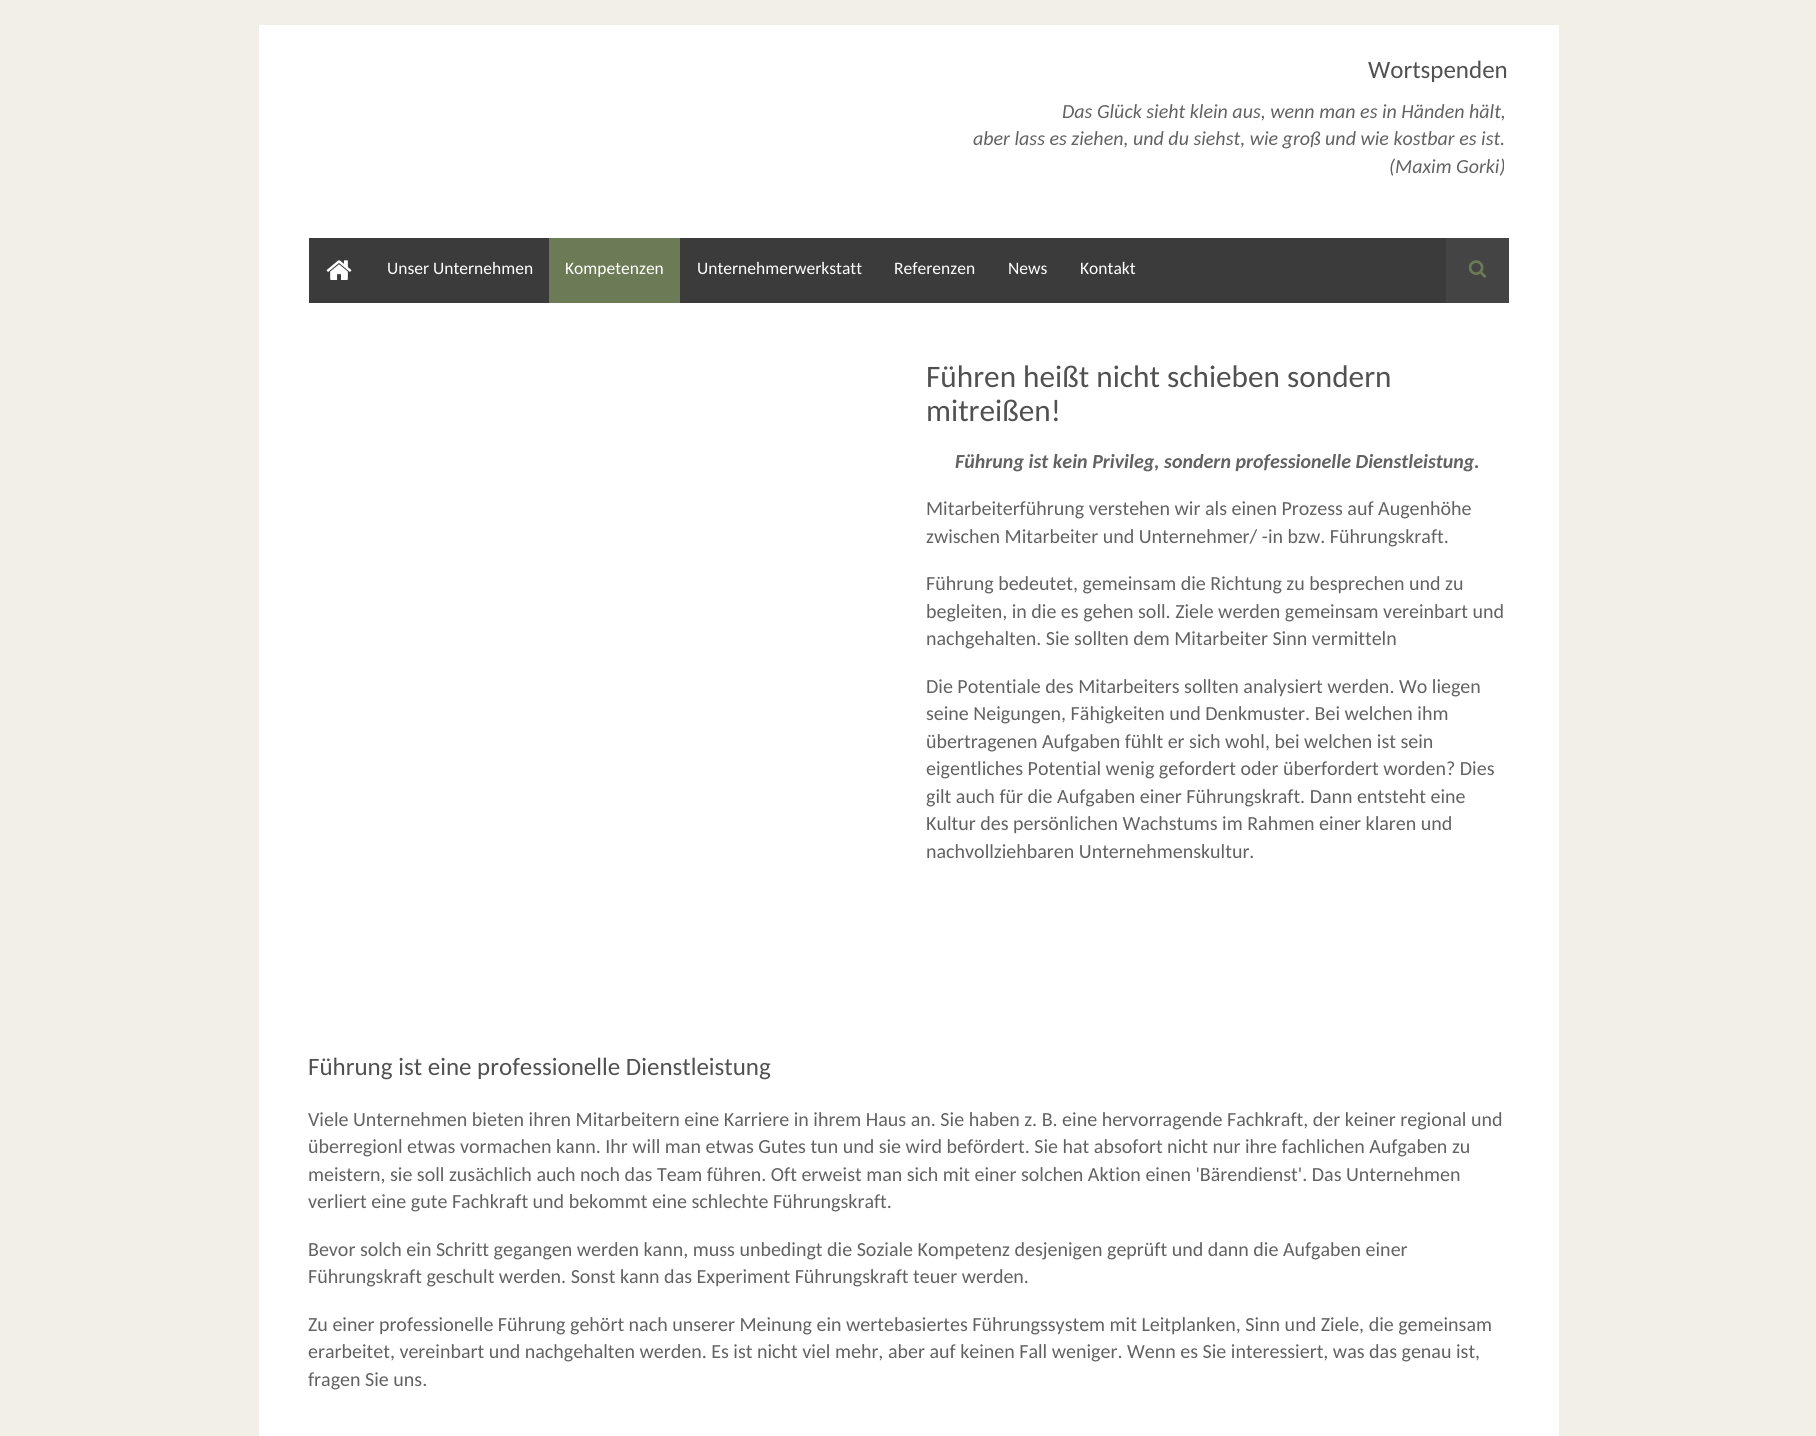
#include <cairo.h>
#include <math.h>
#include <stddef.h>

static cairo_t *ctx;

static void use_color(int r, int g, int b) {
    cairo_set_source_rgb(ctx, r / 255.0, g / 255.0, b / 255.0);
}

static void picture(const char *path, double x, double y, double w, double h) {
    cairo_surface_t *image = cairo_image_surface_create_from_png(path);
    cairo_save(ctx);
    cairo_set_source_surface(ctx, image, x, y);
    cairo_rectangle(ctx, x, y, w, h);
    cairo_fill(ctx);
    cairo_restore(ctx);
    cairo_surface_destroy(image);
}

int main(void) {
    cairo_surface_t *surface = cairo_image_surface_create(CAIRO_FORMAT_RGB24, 1816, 1436);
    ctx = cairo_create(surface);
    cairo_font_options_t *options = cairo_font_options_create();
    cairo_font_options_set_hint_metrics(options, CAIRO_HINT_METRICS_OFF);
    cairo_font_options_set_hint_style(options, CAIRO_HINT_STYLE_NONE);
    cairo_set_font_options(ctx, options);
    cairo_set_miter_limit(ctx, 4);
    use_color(242, 239, 232);
    cairo_paint(ctx);
    use_color(255, 255, 255);
    cairo_rectangle(ctx, 259, 25, 1300, 1411);
    cairo_fill(ctx);
    cairo_select_font_face(ctx, "Carlito", CAIRO_FONT_SLANT_NORMAL, CAIRO_FONT_WEIGHT_NORMAL);
    cairo_set_font_size(ctx, 25);
    use_color(81, 81, 81);
    cairo_move_to(ctx, 1368, 78);
    cairo_show_text(ctx, "Wortspenden");
    cairo_select_font_face(ctx, "Carlito", CAIRO_FONT_SLANT_ITALIC, CAIRO_FONT_WEIGHT_NORMAL);
    cairo_set_font_size(ctx, 20);
    use_color(98, 98, 98);
    cairo_move_to(ctx, 1062, 118);
    cairo_show_text(ctx, "Das Glück sieht klein aus, wenn man es in Händen hält,");
    cairo_move_to(ctx, 973, 145);
    cairo_show_text(ctx, "aber lass es ziehen, und du siehst, wie groß und wie kostbar es ist.");
    cairo_move_to(ctx, 1389, 173);
    cairo_show_text(ctx, "(Maxim Gorki)");
    use_color(59, 59, 59);
    cairo_rectangle(ctx, 309, 238, 1137, 65);
    cairo_fill(ctx);
    picture("img1.png", 326, 260, 26, 20);
    cairo_select_font_face(ctx, "Carlito", CAIRO_FONT_SLANT_NORMAL, CAIRO_FONT_WEIGHT_NORMAL);
    cairo_set_font_size(ctx, 17.5);
    use_color(255, 255, 255);
    cairo_move_to(ctx, 387, 274);
    cairo_show_text(ctx, "Unser Unternehmen");
    use_color(108, 123, 86);
    cairo_rectangle(ctx, 549, 238, 131, 65);
    cairo_fill(ctx);
    use_color(255, 255, 255);
    cairo_move_to(ctx, 565, 274);
    cairo_show_text(ctx, "Kompetenzen");
    cairo_move_to(ctx, 697, 274);
    cairo_show_text(ctx, "Unternehmerwerkstatt");
    cairo_move_to(ctx, 894, 274);
    cairo_show_text(ctx, "Referenzen");
    cairo_move_to(ctx, 1008, 274);
    cairo_show_text(ctx, "News");
    cairo_move_to(ctx, 1080, 274);
    cairo_show_text(ctx, "Kontakt");
    use_color(68, 68, 68);
    cairo_rectangle(ctx, 1446, 238, 63, 65);
    cairo_fill(ctx);
    picture("img2.png", 1468, 260, 19, 18);
    cairo_set_font_size(ctx, 31.25);
    use_color(81, 81, 81);
    cairo_move_to(ctx, 926, 387);
    cairo_show_text(ctx, "Führen heißt nicht schieben sondern");
    cairo_move_to(ctx, 926, 421);
    cairo_show_text(ctx, "mitreißen!");
    cairo_select_font_face(ctx, "Carlito", CAIRO_FONT_SLANT_ITALIC, CAIRO_FONT_WEIGHT_BOLD);
    cairo_set_font_size(ctx, 20);
    use_color(98, 98, 98);
    cairo_move_to(ctx, 955, 468);
    cairo_show_text(ctx, "Führung ist kein Privileg, sondern professionelle Dienstleistung.");
    cairo_select_font_face(ctx, "Carlito", CAIRO_FONT_SLANT_NORMAL, CAIRO_FONT_WEIGHT_NORMAL);
    cairo_move_to(ctx, 926, 515);
    cairo_show_text(ctx, "Mitarbeiterführung verstehen wir als einen Prozess auf Augenhöhe");
    cairo_move_to(ctx, 926, 543);
    cairo_show_text(ctx, "zwischen Mitarbeiter und Unternehmer/ -in bzw. Führungskraft.");
    cairo_move_to(ctx, 926, 590);
    cairo_show_text(ctx, "Führung bedeutet, gemeinsam die Richtung zu besprechen und zu");
    cairo_move_to(ctx, 926, 618);
    cairo_show_text(ctx, "begleiten, in die es gehen soll. Ziele werden gemeinsam vereinbart und");
    cairo_move_to(ctx, 926, 645);
    cairo_show_text(ctx, "nachgehalten. Sie sollten dem Mitarbeiter Sinn vermitteln");
    cairo_move_to(ctx, 926, 693);
    cairo_show_text(ctx, "Die Potentiale des Mitarbeiters sollten analysiert werden. Wo liegen");
    cairo_move_to(ctx, 926, 720);
    cairo_show_text(ctx, "seine Neigungen, Fähigkeiten und Denkmuster. Bei welchen ihm");
    cairo_move_to(ctx, 926, 748);
    cairo_show_text(ctx, "übertragenen Aufgaben fühlt er sich wohl, bei welchen ist sein");
    cairo_move_to(ctx, 926, 775);
    cairo_show_text(ctx, "eigentliches Potential wenig gefordert oder überfordert worden? Dies");
    cairo_move_to(ctx, 926, 803);
    cairo_show_text(ctx, "gilt auch für die Aufgaben einer Führungskraft. Dann entsteht eine");
    cairo_move_to(ctx, 926, 830);
    cairo_show_text(ctx, "Kultur des persönlichen Wachstums im Rahmen einer klaren und");
    cairo_move_to(ctx, 926, 858);
    cairo_show_text(ctx, "nachvollziehbaren Unternehmenskultur.");
    cairo_set_font_size(ctx, 25);
    use_color(81, 81, 81);
    cairo_move_to(ctx, 308, 1075);
    cairo_show_text(ctx, "Führung ist eine professionelle Dienstleistung");
    cairo_set_font_size(ctx, 20);
    use_color(98, 98, 98);
    cairo_move_to(ctx, 308, 1126);
    cairo_show_text(ctx, "Viele Unternehmen bieten ihren Mitarbeitern eine Karriere in ihrem Haus an. Sie haben z. B. eine hervorragende Fachkraft, der keiner regional und");
    cairo_move_to(ctx, 308, 1153);
    cairo_show_text(ctx, "überregionl etwas vormachen kann. Ihr will man etwas Gutes tun und sie wird befördert. Sie hat absofort nicht nur ihre fachlichen Aufgaben zu");
    cairo_move_to(ctx, 308, 1181);
    cairo_show_text(ctx, "meistern, sie soll zusächlich auch noch das Team führen. Oft erweist man sich mit einer solchen Aktion einen 'Bärendienst'. Das Unternehmen");
    cairo_move_to(ctx, 308, 1208);
    cairo_show_text(ctx, "verliert eine gute Fachkraft und bekommt eine schlechte Führungskraft.");
    cairo_move_to(ctx, 308, 1256);
    cairo_show_text(ctx, "Bevor solch ein Schritt gegangen werden kann, muss unbedingt die Soziale Kompetenz desjenigen geprüft und dann die Aufgaben einer");
    cairo_move_to(ctx, 308, 1283);
    cairo_show_text(ctx, "Führungskraft geschult werden. Sonst kann das Experiment Führungskraft teuer werden.");
    cairo_move_to(ctx, 308, 1331);
    cairo_show_text(ctx, "Zu einer professionelle Führung gehört nach unserer Meinung ein wertebasiertes Führungssystem mit Leitplanken, Sinn und Ziele, die gemeinsam");
    cairo_move_to(ctx, 308, 1358);
    cairo_show_text(ctx, "erarbeitet, vereinbart und nachgehalten werden. Es ist nicht viel mehr, aber auf keinen Fall weniger. Wenn es Sie interessiert, was das genau ist,");
    cairo_move_to(ctx, 308, 1386);
    cairo_show_text(ctx, "fragen Sie uns.");
    cairo_surface_write_to_png(surface, "result.png");
    cairo_font_options_destroy(options);
    cairo_destroy(ctx);
    cairo_surface_destroy(surface);
    return 0;
}
